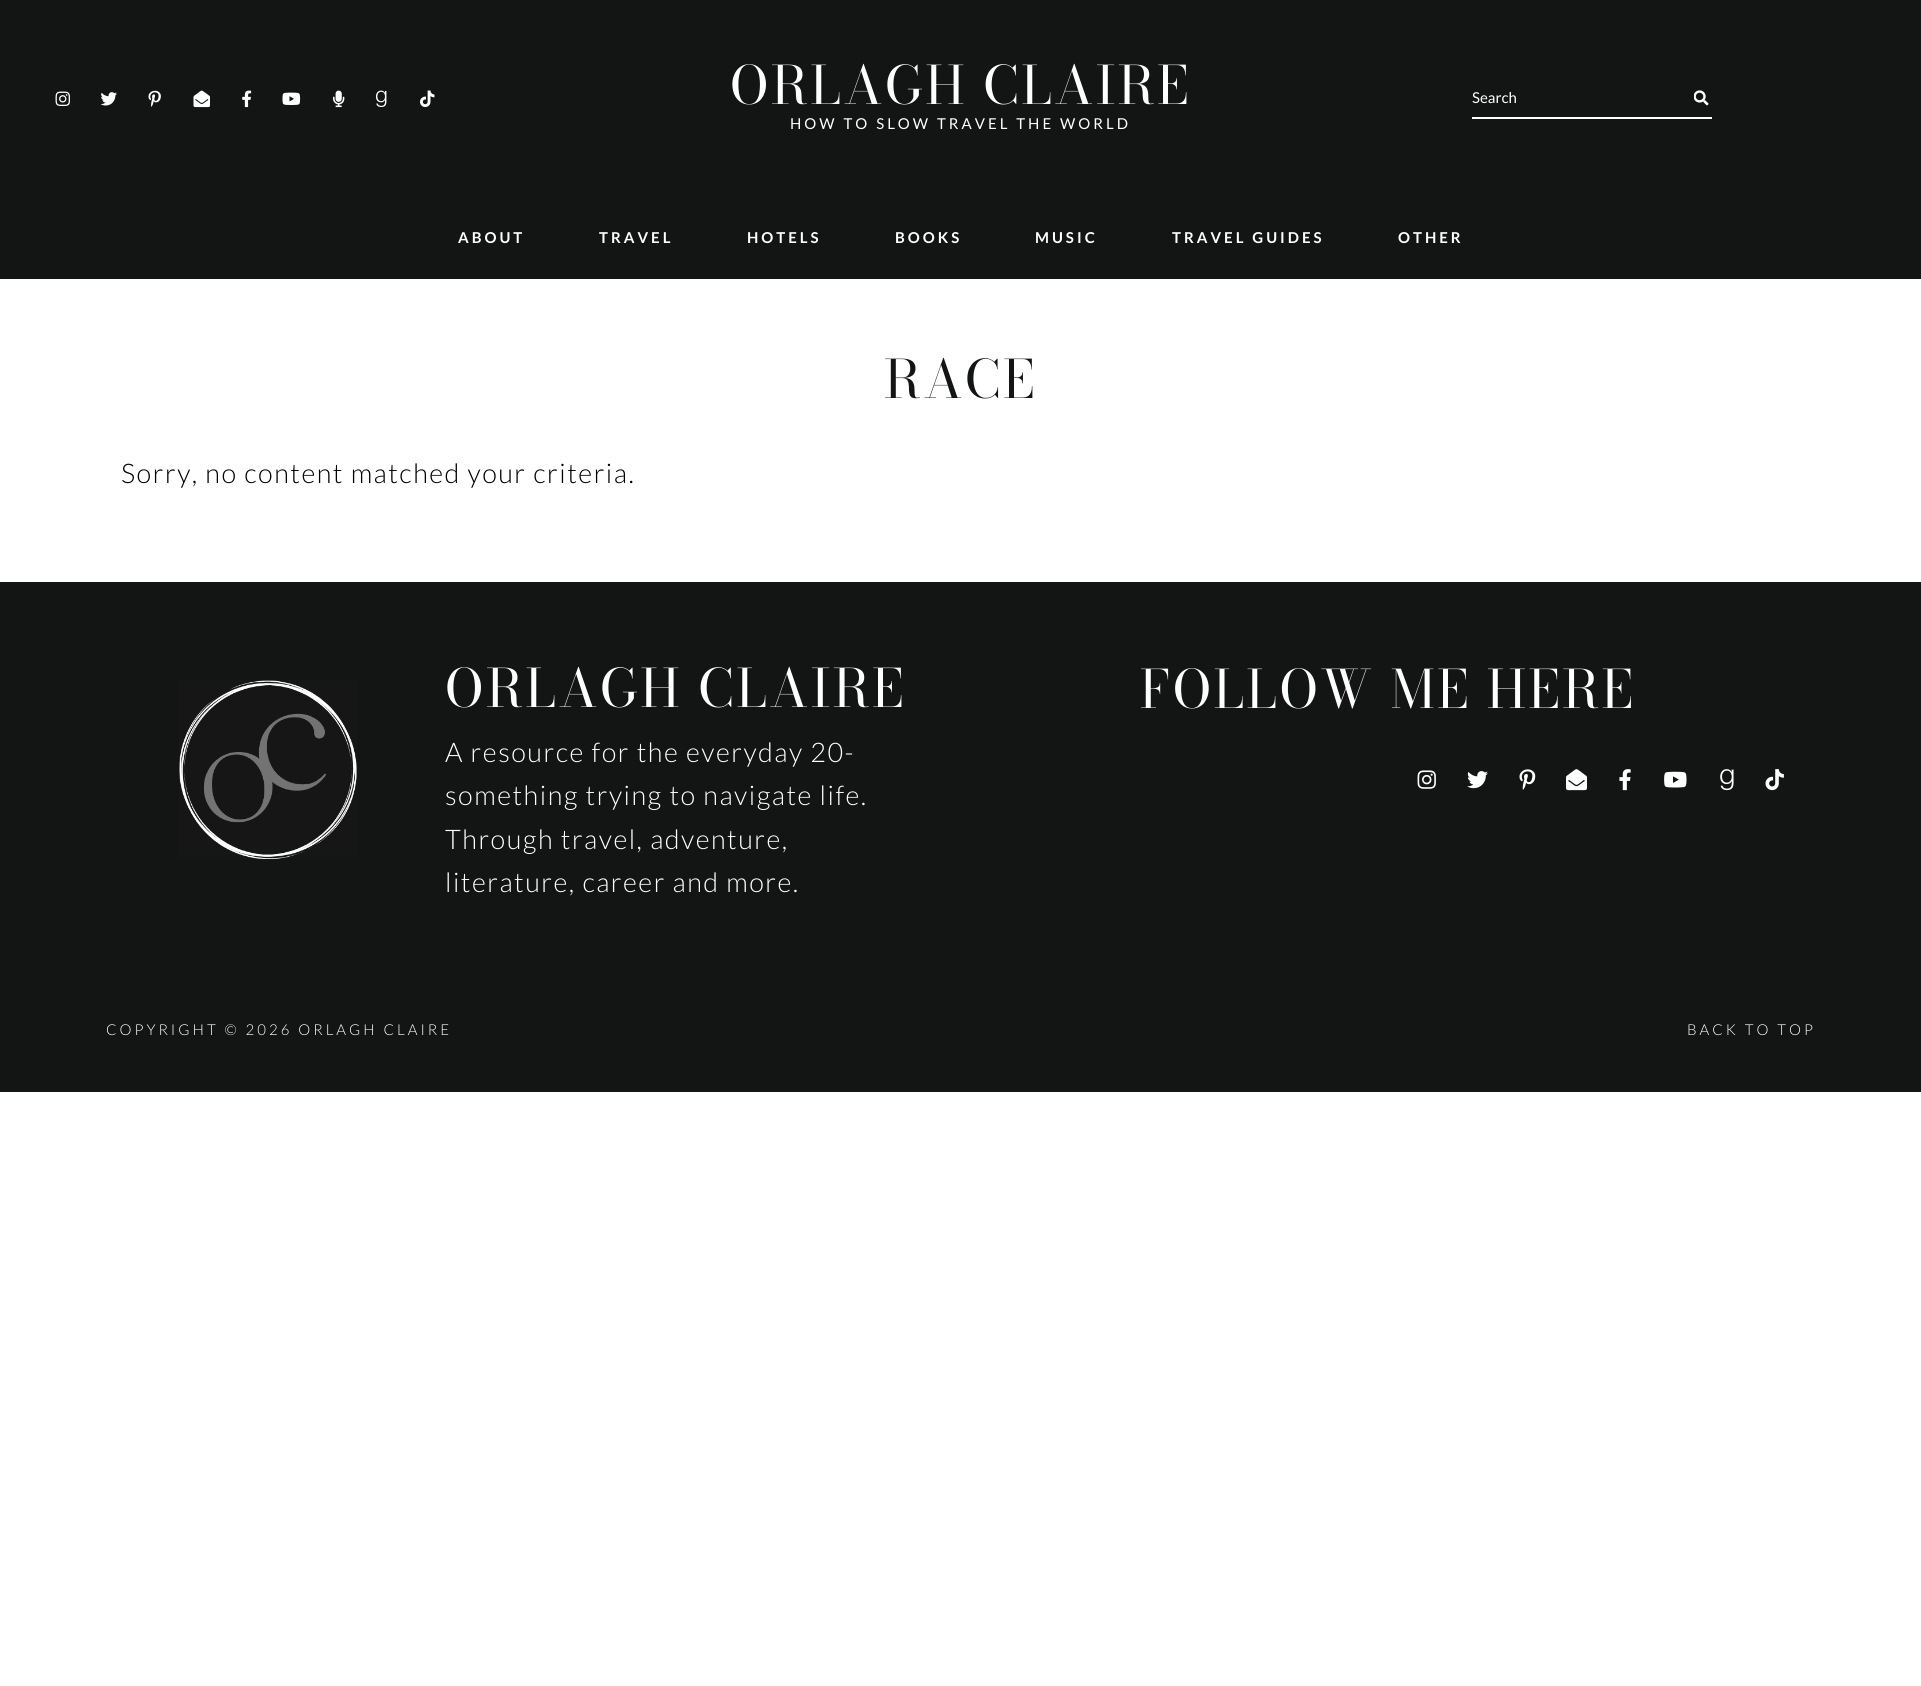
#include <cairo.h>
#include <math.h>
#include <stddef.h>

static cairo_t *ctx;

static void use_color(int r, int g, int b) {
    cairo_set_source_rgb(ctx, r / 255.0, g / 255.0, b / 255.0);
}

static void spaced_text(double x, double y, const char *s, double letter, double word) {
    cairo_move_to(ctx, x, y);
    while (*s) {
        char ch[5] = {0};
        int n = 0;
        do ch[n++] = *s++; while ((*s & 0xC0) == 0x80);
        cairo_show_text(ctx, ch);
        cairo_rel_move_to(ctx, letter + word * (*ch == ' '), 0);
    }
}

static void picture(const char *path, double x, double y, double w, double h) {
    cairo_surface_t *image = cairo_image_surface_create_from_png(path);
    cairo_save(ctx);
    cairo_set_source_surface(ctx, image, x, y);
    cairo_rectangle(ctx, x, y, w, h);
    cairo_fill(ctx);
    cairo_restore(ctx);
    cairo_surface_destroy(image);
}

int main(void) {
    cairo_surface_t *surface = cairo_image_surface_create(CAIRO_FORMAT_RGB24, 1921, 1686);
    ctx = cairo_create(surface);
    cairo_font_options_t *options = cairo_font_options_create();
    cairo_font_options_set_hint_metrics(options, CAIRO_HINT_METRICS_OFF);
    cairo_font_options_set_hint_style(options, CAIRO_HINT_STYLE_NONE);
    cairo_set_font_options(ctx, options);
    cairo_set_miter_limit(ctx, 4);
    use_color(255, 255, 255);
    cairo_paint(ctx);
    use_color(19, 20, 20);
    cairo_rectangle(ctx, 0, 0, 1921, 279);
    cairo_fill(ctx);
    picture("img1.png", 55, 91, 15, 15);
    picture("img2.png", 100, 92, 17, 14);
    picture("img3.png", 148, 90, 13, 17);
    picture("img4.png", 193, 90, 17, 18);
    picture("img5.png", 242, 90, 10, 18);
    picture("img6.png", 282, 92, 19, 13);
    picture("img7.png", 333, 90, 12, 18);
    picture("img8.png", 375, 90, 12, 17);
    picture("img9.png", 420, 90, 15, 18);
    cairo_select_font_face(ctx, "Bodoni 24", CAIRO_FONT_SLANT_NORMAL, CAIRO_FONT_WEIGHT_NORMAL);
    cairo_set_font_size(ctx, 52.5);
    use_color(255, 255, 255);
    spaced_text(730, 104, "ORLAGH CLAIRE", 3, 0);
    cairo_select_font_face(ctx, "Lato", CAIRO_FONT_SLANT_NORMAL, CAIRO_FONT_WEIGHT_NORMAL);
    cairo_set_font_size(ctx, 15);
    spaced_text(790, 129, "HOW TO SLOW TRAVEL THE WORLD", 3, 0);
    cairo_rectangle(ctx, 1472, 117, 240, 2);
    cairo_fill(ctx);
    cairo_move_to(ctx, 1472, 103);
    cairo_show_text(ctx, "Search");
    picture("img10.png", 1694, 90, 15, 16);
    cairo_select_font_face(ctx, "Lato", CAIRO_FONT_SLANT_NORMAL, CAIRO_FONT_WEIGHT_BOLD);
    spaced_text(458, 243, "ABOUT", 3, 0);
    spaced_text(599, 243, "TRAVEL", 3, 0);
    spaced_text(747, 243, "HOTELS", 3, 0);
    spaced_text(895, 243, "BOOKS", 3, 0);
    spaced_text(1035, 243, "MUSIC", 3, 0);
    spaced_text(1172, 243, "TRAVEL GUIDES", 3, 0);
    spaced_text(1398, 243, "OTHER", 3, 0);
    cairo_select_font_face(ctx, "Bodoni 24", CAIRO_FONT_SLANT_NORMAL, CAIRO_FONT_WEIGHT_NORMAL);
    cairo_set_font_size(ctx, 52.5);
    use_color(19, 20, 20);
    spaced_text(884, 398, "RACE", 3, 0);
    cairo_select_font_face(ctx, "Lato Light", CAIRO_FONT_SLANT_NORMAL, CAIRO_FONT_WEIGHT_NORMAL);
    cairo_set_font_size(ctx, 27);
    use_color(0, 0, 0);
    spaced_text(121, 483, "Sorry, no content matched your criteria.", 1.5, 0);
    use_color(19, 20, 20);
    cairo_rectangle(ctx, 0, 582, 1921, 510);
    cairo_fill(ctx);
    picture("img11.png", 179, 680, 178, 179);
    cairo_select_font_face(ctx, "Bodoni 24", CAIRO_FONT_SLANT_NORMAL, CAIRO_FONT_WEIGHT_NORMAL);
    cairo_set_font_size(ctx, 52.5);
    use_color(255, 255, 255);
    spaced_text(445, 707, "ORLAGH CLAIRE", 3, 0);
    cairo_select_font_face(ctx, "Lato Light", CAIRO_FONT_SLANT_NORMAL, CAIRO_FONT_WEIGHT_NORMAL);
    cairo_set_font_size(ctx, 27);
    spaced_text(445, 762, "A resource for the everyday 20-", 1.5, 0);
    spaced_text(445, 805, "something trying to navigate life.", 1.5, 0);
    spaced_text(445, 849, "Through travel, adventure,", 1.5, 0);
    spaced_text(445, 892, "literature, career and more.", 1.5, 0);
    cairo_select_font_face(ctx, "Bodoni 24", CAIRO_FONT_SLANT_NORMAL, CAIRO_FONT_WEIGHT_NORMAL);
    cairo_set_font_size(ctx, 52.5);
    spaced_text(1140, 708, "FOLLOW ME HERE", 3, 0);
    picture("img12.png", 1417, 770, 19, 19);
    picture("img13.png", 1467, 771, 21, 18);
    picture("img14.png", 1519, 769, 17, 21);
    picture("img15.png", 1566, 769, 21, 22);
    picture("img16.png", 1619, 769, 12, 22);
    picture("img17.png", 1664, 771, 23, 17);
    picture("img18.png", 1720, 769, 14, 22);
    picture("img19.png", 1765, 769, 19, 22);
    cairo_select_font_face(ctx, "Lato Light", CAIRO_FONT_SLANT_NORMAL, CAIRO_FONT_WEIGHT_NORMAL);
    cairo_set_font_size(ctx, 15);
    spaced_text(106, 1035, "COPYRIGHT © 2026 ORLAGH CLAIRE", 3, 0);
    spaced_text(1687, 1035, "BACK TO TOP", 3, 0);
    cairo_surface_write_to_png(surface, "result.png");
    cairo_font_options_destroy(options);
    cairo_destroy(ctx);
    cairo_surface_destroy(surface);
    return 0;
}
